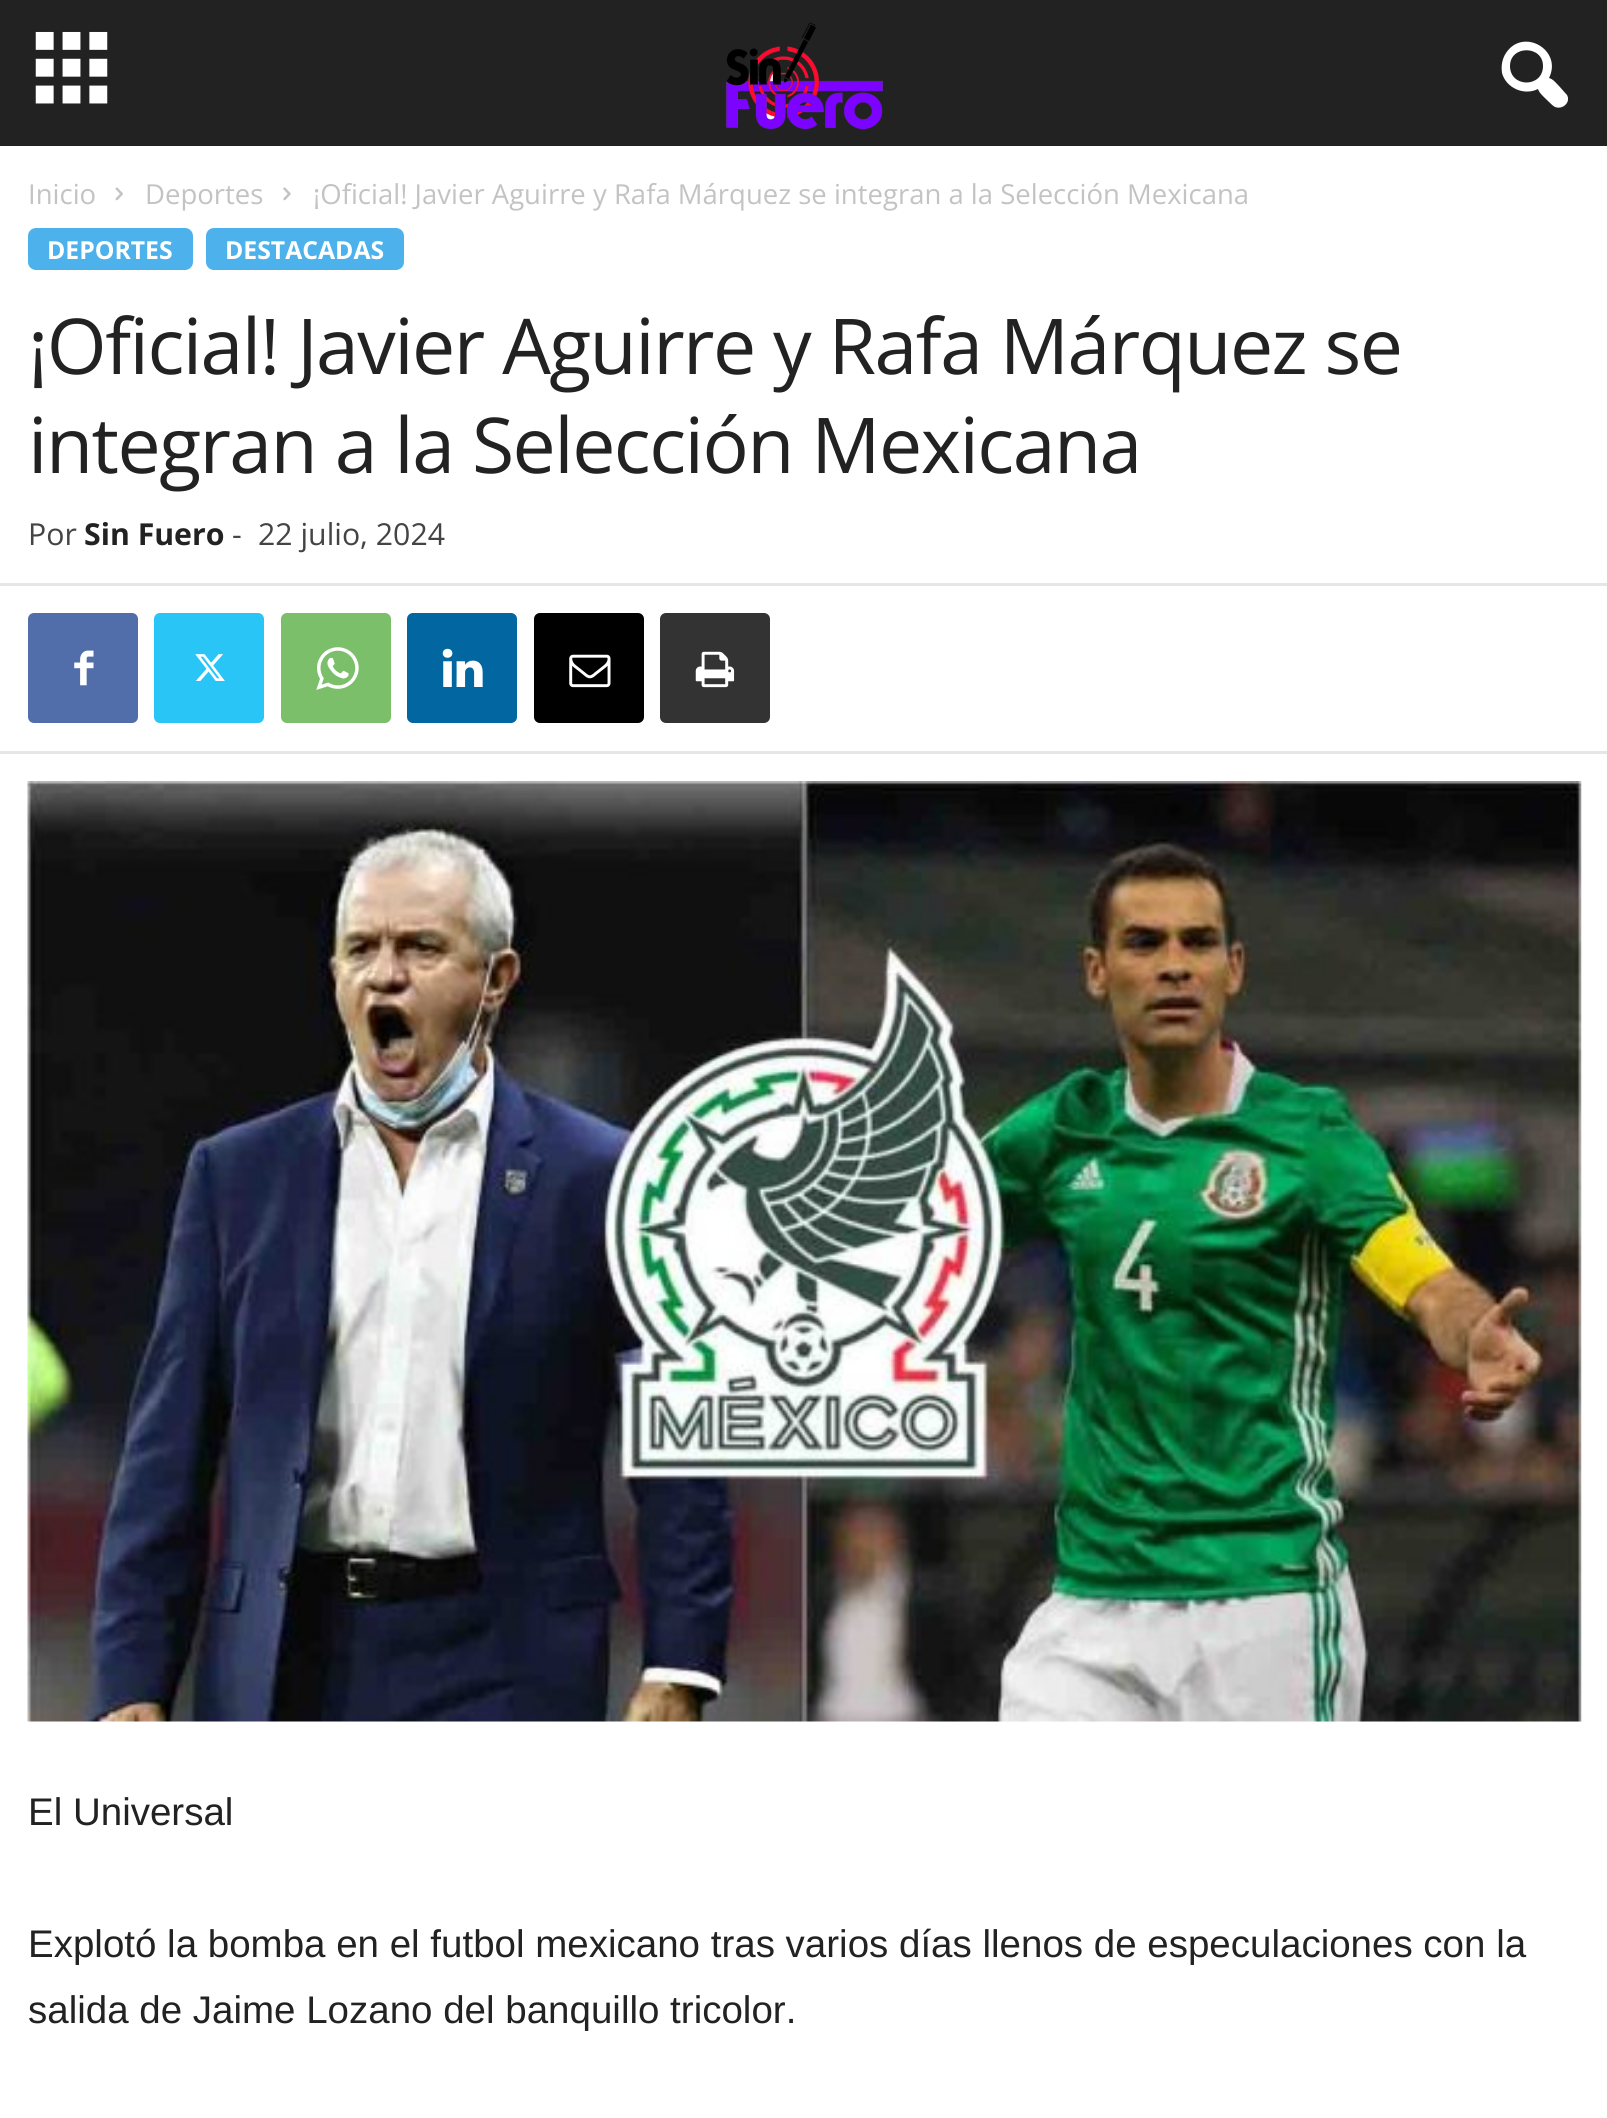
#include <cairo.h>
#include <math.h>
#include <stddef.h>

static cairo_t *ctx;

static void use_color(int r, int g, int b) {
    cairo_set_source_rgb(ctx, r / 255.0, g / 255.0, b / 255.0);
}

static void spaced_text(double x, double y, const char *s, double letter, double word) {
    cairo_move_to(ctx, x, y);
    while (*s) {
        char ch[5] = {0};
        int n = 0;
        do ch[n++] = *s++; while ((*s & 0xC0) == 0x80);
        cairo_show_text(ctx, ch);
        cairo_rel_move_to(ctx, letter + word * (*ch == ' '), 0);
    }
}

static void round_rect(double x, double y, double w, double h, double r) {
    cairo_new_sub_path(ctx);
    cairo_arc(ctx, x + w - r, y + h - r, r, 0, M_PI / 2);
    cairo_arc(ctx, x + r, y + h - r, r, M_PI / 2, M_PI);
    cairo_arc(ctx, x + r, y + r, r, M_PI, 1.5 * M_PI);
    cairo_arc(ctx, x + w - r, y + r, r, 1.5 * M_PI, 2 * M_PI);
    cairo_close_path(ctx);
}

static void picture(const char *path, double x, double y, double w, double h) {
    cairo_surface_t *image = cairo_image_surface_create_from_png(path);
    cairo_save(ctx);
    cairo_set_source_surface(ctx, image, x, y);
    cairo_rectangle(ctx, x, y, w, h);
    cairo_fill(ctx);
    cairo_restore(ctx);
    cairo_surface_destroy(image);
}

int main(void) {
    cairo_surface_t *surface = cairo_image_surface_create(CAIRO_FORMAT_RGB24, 1607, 2118);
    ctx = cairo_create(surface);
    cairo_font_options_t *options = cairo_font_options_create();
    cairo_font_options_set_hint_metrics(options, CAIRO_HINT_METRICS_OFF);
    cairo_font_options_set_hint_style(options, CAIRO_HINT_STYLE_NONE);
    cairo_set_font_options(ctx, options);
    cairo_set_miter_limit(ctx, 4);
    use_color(255, 255, 255);
    cairo_paint(ctx);
    use_color(34, 34, 34);
    cairo_rectangle(ctx, 0, 0, 1607, 146);
    cairo_fill(ctx);
    picture("img1.png", 35, 31, 73, 73);
    picture("img2.png", 726, 22, 157, 108);
    use_color(255, 255, 255);
    cairo_new_path(ctx);
    cairo_move_to(ctx, 1502, 73);
    cairo_curve_to(ctx, 1501, 66, 1502, 59, 1506, 53);
    cairo_curve_to(ctx, 1523, 27, 1563, 50, 1549, 78);
    cairo_curve_to(ctx, 1553, 79, 1556, 83, 1559, 86);
    cairo_line_to(ctx, 1567, 95);
    cairo_curve_to(ctx, 1571, 102, 1563, 110, 1555, 107);
    cairo_curve_to(ctx, 1553, 106, 1550, 103, 1548, 101);
    cairo_curve_to(ctx, 1545, 98, 1539, 93, 1538, 89);
    cairo_curve_to(ctx, 1524, 96, 1506, 88, 1502, 73);
    cairo_close_path(ctx);
    cairo_move_to(ctx, 1510, 66);
    cairo_curve_to(ctx, 1510, 88, 1543, 88, 1543, 66);
    cairo_curve_to(ctx, 1543, 45, 1510, 45, 1510, 66);
    cairo_close_path(ctx);
    cairo_fill(ctx);
    cairo_select_font_face(ctx, "Open Sans", CAIRO_FONT_SLANT_NORMAL, CAIRO_FONT_WEIGHT_NORMAL);
    cairo_set_font_size(ctx, 27.5);
    use_color(195, 195, 195);
    cairo_move_to(ctx, 28, 204);
    cairo_show_text(ctx, "Inicio");
    picture("img3.png", 115, 187, 8, 14);
    cairo_move_to(ctx, 145, 204);
    cairo_show_text(ctx, "Deportes");
    picture("img4.png", 283, 187, 8, 14);
    cairo_move_to(ctx, 313, 204);
    cairo_show_text(ctx, "¡Oficial! Javier Aguirre y Rafa Márquez se integran a la Selección Mexicana");
    use_color(77, 178, 236);
    round_rect(28, 228, 165, 42, 8);
    cairo_fill(ctx);
    cairo_select_font_face(ctx, "Open Sans", CAIRO_FONT_SLANT_NORMAL, CAIRO_FONT_WEIGHT_BOLD);
    cairo_set_font_size(ctx, 24.75);
    use_color(255, 255, 255);
    cairo_move_to(ctx, 47, 259);
    cairo_show_text(ctx, "DEPORTES");
    use_color(77, 178, 236);
    round_rect(206, 228, 198, 42, 8);
    cairo_fill(ctx);
    use_color(255, 255, 255);
    cairo_move_to(ctx, 225, 259);
    cairo_show_text(ctx, "DESTACADAS");
    cairo_select_font_face(ctx, "Open Sans", CAIRO_FONT_SLANT_NORMAL, CAIRO_FONT_WEIGHT_NORMAL);
    cairo_set_font_size(ctx, 77);
    use_color(34, 34, 34);
    spaced_text(28, 374, "¡Oficial! Javier Aguirre y Rafa Márquez se", -1.55, 0);
    spaced_text(28, 473, "integran a la Selección Mexicana", -1.55, 0);
    cairo_set_font_size(ctx, 30.25);
    use_color(68, 68, 68);
    cairo_move_to(ctx, 28, 545);
    cairo_show_text(ctx, "Por");
    cairo_select_font_face(ctx, "Open Sans", CAIRO_FONT_SLANT_NORMAL, CAIRO_FONT_WEIGHT_BOLD);
    use_color(34, 34, 34);
    cairo_move_to(ctx, 84, 545);
    cairo_show_text(ctx, "Sin Fuero");
    cairo_select_font_face(ctx, "Open Sans", CAIRO_FONT_SLANT_NORMAL, CAIRO_FONT_WEIGHT_NORMAL);
    use_color(68, 68, 68);
    cairo_move_to(ctx, 232, 545);
    cairo_show_text(ctx, "-");
    cairo_move_to(ctx, 258, 545);
    cairo_show_text(ctx, "22 julio, 2024");
    use_color(230, 230, 230);
    cairo_rectangle(ctx, 0, 583, 1607, 3);
    cairo_fill(ctx);
    use_color(81, 110, 171);
    round_rect(28, 613, 110, 110, 6);
    cairo_fill(ctx);
    picture("img5.png", 74, 650, 20, 36);
    use_color(41, 197, 246);
    round_rect(154, 613, 110, 110, 6);
    cairo_fill(ctx);
    picture("img6.png", 195, 654, 30, 27);
    use_color(123, 191, 106);
    round_rect(281, 613, 110, 110, 6);
    cairo_fill(ctx);
    picture("img7.png", 316, 647, 43, 43);
    use_color(2, 102, 160);
    round_rect(407, 613, 110, 110, 6);
    cairo_fill(ctx);
    picture("img8.png", 442, 648, 41, 39);
    use_color(0, 0, 0);
    round_rect(534, 613, 110, 110, 6);
    cairo_fill(ctx);
    picture("img9.png", 569, 654, 42, 34);
    use_color(51, 51, 51);
    round_rect(660, 613, 110, 110, 6);
    cairo_fill(ctx);
    picture("img10.png", 695, 651, 40, 37);
    use_color(230, 230, 230);
    cairo_rectangle(ctx, 0, 751, 1607, 3);
    cairo_fill(ctx);
    picture("img11.png", 27, 781, 1555, 941);
    cairo_select_font_face(ctx, "Liberation Sans", CAIRO_FONT_SLANT_NORMAL, CAIRO_FONT_WEIGHT_NORMAL);
    cairo_set_font_size(ctx, 38.5);
    use_color(34, 34, 34);
    cairo_move_to(ctx, 28, 1825);
    cairo_show_text(ctx, "El Universal");
    cairo_move_to(ctx, 28, 1957);
    cairo_show_text(ctx, "Explotó la bomba en el futbol mexicano tras varios días llenos de especulaciones con la");
    cairo_move_to(ctx, 28, 2023);
    cairo_show_text(ctx, "salida de Jaime Lozano del banquillo tricolor.");
    cairo_surface_write_to_png(surface, "result.png");
    cairo_font_options_destroy(options);
    cairo_destroy(ctx);
    cairo_surface_destroy(surface);
    return 0;
}
